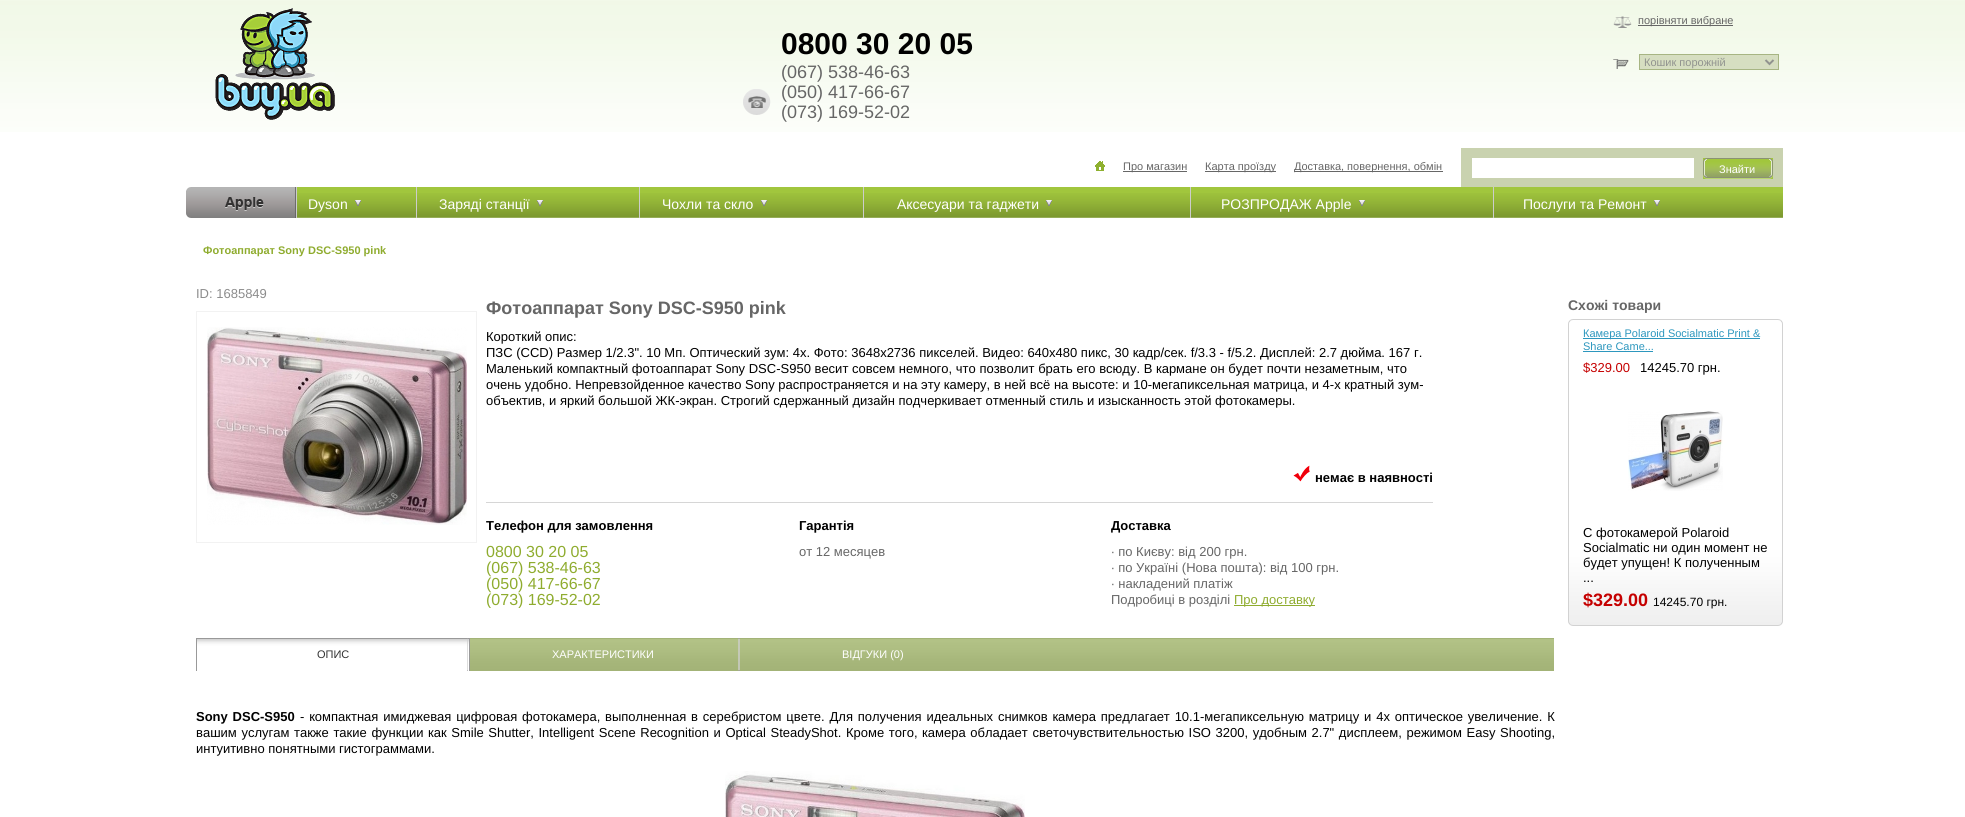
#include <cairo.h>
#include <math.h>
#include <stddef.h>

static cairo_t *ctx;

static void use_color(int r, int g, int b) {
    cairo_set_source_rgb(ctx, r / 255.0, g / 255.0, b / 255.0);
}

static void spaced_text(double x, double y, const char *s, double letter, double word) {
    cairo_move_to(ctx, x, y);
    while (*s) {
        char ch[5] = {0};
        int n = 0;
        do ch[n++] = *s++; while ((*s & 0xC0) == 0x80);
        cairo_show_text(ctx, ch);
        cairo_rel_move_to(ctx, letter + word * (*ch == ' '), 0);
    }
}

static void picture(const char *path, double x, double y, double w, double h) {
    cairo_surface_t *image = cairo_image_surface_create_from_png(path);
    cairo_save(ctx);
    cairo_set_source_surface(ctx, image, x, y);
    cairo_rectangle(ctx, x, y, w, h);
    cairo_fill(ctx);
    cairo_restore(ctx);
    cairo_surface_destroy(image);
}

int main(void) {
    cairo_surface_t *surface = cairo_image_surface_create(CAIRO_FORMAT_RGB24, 1965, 817);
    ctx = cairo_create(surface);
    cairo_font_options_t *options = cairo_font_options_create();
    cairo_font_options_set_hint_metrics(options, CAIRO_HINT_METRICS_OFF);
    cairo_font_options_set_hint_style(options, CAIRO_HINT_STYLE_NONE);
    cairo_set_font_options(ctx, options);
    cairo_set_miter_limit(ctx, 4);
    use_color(255, 255, 255);
    cairo_paint(ctx);
    picture("img1.png", 0, 0, 1965, 132);
    picture("img2.png", 215, 8, 120, 112);
    picture("img3.png", 743, 89, 28, 26);
    cairo_select_font_face(ctx, "Liberation Sans", CAIRO_FONT_SLANT_NORMAL, CAIRO_FONT_WEIGHT_BOLD);
    cairo_set_font_size(ctx, 30);
    use_color(0, 0, 0);
    cairo_move_to(ctx, 781, 54);
    cairo_show_text(ctx, "0800 30 20 05");
    cairo_select_font_face(ctx, "Liberation Sans", CAIRO_FONT_SLANT_NORMAL, CAIRO_FONT_WEIGHT_NORMAL);
    cairo_set_font_size(ctx, 18);
    use_color(102, 102, 102);
    cairo_move_to(ctx, 781, 78);
    cairo_show_text(ctx, "(067) 538-46-63");
    cairo_move_to(ctx, 781, 98);
    cairo_show_text(ctx, "(050) 417-66-67");
    cairo_move_to(ctx, 781, 118);
    cairo_show_text(ctx, "(073) 169-52-02");
    picture("img4.png", 1613, 16, 19, 12);
    cairo_rectangle(ctx, 1638, 25, 95, 1);
    cairo_fill(ctx);
    cairo_set_font_size(ctx, 11);
    cairo_move_to(ctx, 1638, 24);
    cairo_show_text(ctx, "порівняти вибране");
    picture("img5.png", 1613, 59, 16, 10);
    cairo_set_source_rgba(ctx, 0.788, 0.824, 0.686, 0.7);
    cairo_rectangle(ctx, 1639.5, 54.5, 139, 15);
    cairo_fill_preserve(ctx);
    use_color(167, 181, 131);
    cairo_set_line_width(ctx, 1);
    cairo_stroke(ctx);
    cairo_new_path(ctx);
    cairo_move_to(ctx, 1765.5, 60);
    cairo_line_to(ctx, 1769.5, 64);
    cairo_line_to(ctx, 1773.5, 60);
    use_color(145, 147, 143);
    cairo_set_line_width(ctx, 2);
    cairo_stroke(ctx);
    cairo_move_to(ctx, 1644, 66);
    cairo_show_text(ctx, "Кошик порожній");
    picture("img6.png", 1095, 161, 10, 10);
    use_color(102, 102, 102);
    cairo_rectangle(ctx, 1123, 171, 64, 1);
    cairo_fill(ctx);
    cairo_move_to(ctx, 1123, 170);
    cairo_show_text(ctx, "Про магазин");
    cairo_rectangle(ctx, 1205, 171, 71, 1);
    cairo_fill(ctx);
    cairo_move_to(ctx, 1205, 170);
    cairo_show_text(ctx, "Карта проїзду");
    cairo_rectangle(ctx, 1294, 171, 149, 1);
    cairo_fill(ctx);
    cairo_move_to(ctx, 1294, 170);
    cairo_show_text(ctx, "Доставка, повернення, обмін");
    use_color(201, 210, 175);
    cairo_rectangle(ctx, 1461, 148, 322, 39);
    cairo_fill(ctx);
    use_color(255, 255, 255);
    cairo_rectangle(ctx, 1472, 158, 222, 20);
    cairo_fill(ctx);
    use_color(161, 198, 61);
    cairo_rectangle(ctx, 1703, 158, 70, 21);
    cairo_fill(ctx);
    picture("img7.png", 1703, 158, 70, 21);
    use_color(255, 255, 255);
    cairo_move_to(ctx, 1719, 173);
    cairo_show_text(ctx, "Знайти");
    use_color(161, 198, 61);
    cairo_rectangle(ctx, 297, 187, 1486, 31);
    cairo_fill(ctx);
    picture("img8.png", 297, 193, 1486, 25);
    picture("img9.png", 186, 187, 110, 31);
    use_color(204, 204, 204);
    cairo_rectangle(ctx, 296, 187, 1, 31);
    cairo_fill(ctx);
    picture("img10.png", 355, 200, 6, 6);
    cairo_set_font_size(ctx, 14);
    use_color(255, 255, 255);
    cairo_move_to(ctx, 308, 209);
    cairo_show_text(ctx, "Dyson");
    use_color(204, 204, 204);
    cairo_rectangle(ctx, 416, 187, 1, 31);
    cairo_fill(ctx);
    picture("img10.png", 537, 200, 6, 6);
    use_color(255, 255, 255);
    cairo_move_to(ctx, 439, 209);
    cairo_show_text(ctx, "Заряді станції");
    use_color(204, 204, 204);
    cairo_rectangle(ctx, 639, 187, 1, 31);
    cairo_fill(ctx);
    picture("img10.png", 761, 200, 6, 6);
    use_color(255, 255, 255);
    cairo_move_to(ctx, 662, 209);
    cairo_show_text(ctx, "Чохли та скло");
    use_color(204, 204, 204);
    cairo_rectangle(ctx, 863, 187, 1, 31);
    cairo_fill(ctx);
    picture("img10.png", 1046, 200, 6, 6);
    use_color(255, 255, 255);
    cairo_move_to(ctx, 897, 209);
    cairo_show_text(ctx, "Аксесуари та гаджети");
    use_color(204, 204, 204);
    cairo_rectangle(ctx, 1190, 187, 1, 31);
    cairo_fill(ctx);
    picture("img10.png", 1359, 200, 6, 6);
    use_color(255, 255, 255);
    cairo_move_to(ctx, 1221, 209);
    cairo_show_text(ctx, "РОЗПРОДАЖ Apple");
    use_color(204, 204, 204);
    cairo_rectangle(ctx, 1493, 187, 1, 31);
    cairo_fill(ctx);
    picture("img10.png", 1654, 200, 6, 6);
    use_color(255, 255, 255);
    cairo_move_to(ctx, 1523, 209);
    cairo_show_text(ctx, "Послуги та Ремонт");
    cairo_select_font_face(ctx, "Liberation Sans", CAIRO_FONT_SLANT_NORMAL, CAIRO_FONT_WEIGHT_BOLD);
    cairo_set_font_size(ctx, 11);
    use_color(143, 172, 47);
    cairo_move_to(ctx, 203, 254);
    cairo_show_text(ctx, "Фотоаппарат Sony DSC-S950 pink");
    cairo_select_font_face(ctx, "Liberation Sans", CAIRO_FONT_SLANT_NORMAL, CAIRO_FONT_WEIGHT_NORMAL);
    cairo_set_font_size(ctx, 13);
    use_color(140, 140, 140);
    cairo_move_to(ctx, 196, 298);
    cairo_show_text(ctx, "ID: 1685849");
    cairo_rectangle(ctx, 196.5, 311.5, 280, 231);
    use_color(242, 242, 242);
    cairo_set_line_width(ctx, 1);
    cairo_stroke(ctx);
    picture("img11.png", 207, 327, 260, 198);
    cairo_select_font_face(ctx, "Liberation Sans", CAIRO_FONT_SLANT_NORMAL, CAIRO_FONT_WEIGHT_BOLD);
    cairo_set_font_size(ctx, 18);
    use_color(102, 102, 102);
    cairo_move_to(ctx, 486, 314);
    cairo_show_text(ctx, "Фотоаппарат Sony DSC-S950 pink");
    cairo_select_font_face(ctx, "Liberation Sans", CAIRO_FONT_SLANT_NORMAL, CAIRO_FONT_WEIGHT_NORMAL);
    cairo_set_font_size(ctx, 13);
    use_color(0, 0, 0);
    cairo_move_to(ctx, 486, 341);
    cairo_show_text(ctx, "Короткий опис:");
    cairo_move_to(ctx, 486, 357);
    cairo_show_text(ctx, "ПЗС (CCD) Размер 1/2.3\". 10 Мп. Оптический зум: 4х. Фото: 3648x2736 пикселей. Видео: 640x480 пикс, 30 кадр/сек. f/3.3 - f/5.2. Дисплей: 2.7 дюйма. 167 г.");
    cairo_move_to(ctx, 486, 373);
    cairo_show_text(ctx, "Маленький компактный фотоаппарат Sony DSC-S950 весит совсем немного, что позволит брать его всюду. В кармане он будет почти незаметным, что");
    cairo_move_to(ctx, 486, 389);
    cairo_show_text(ctx, "очень удобно. Непревзойденное качество Sony распространяется и на эту камеру, в ней всё на высоте: и 10-мегапиксельная матрица, и 4-х кратный зум-");
    cairo_move_to(ctx, 486, 405);
    cairo_show_text(ctx, "объектив, и яркий большой ЖК-экран. Строгий сдержанный дизайн подчеркивает отменный стиль и изысканность этой фотокамеры.");
    picture("img12.png", 1293, 465, 17, 17);
    cairo_select_font_face(ctx, "Liberation Sans", CAIRO_FONT_SLANT_NORMAL, CAIRO_FONT_WEIGHT_BOLD);
    cairo_move_to(ctx, 1315, 482);
    cairo_show_text(ctx, "немає в наявності");
    use_color(214, 214, 214);
    cairo_rectangle(ctx, 486, 502, 947, 1);
    cairo_fill(ctx);
    use_color(0, 0, 0);
    cairo_move_to(ctx, 486, 530);
    cairo_show_text(ctx, "Телефон для замовлення");
    cairo_select_font_face(ctx, "Liberation Sans", CAIRO_FONT_SLANT_NORMAL, CAIRO_FONT_WEIGHT_NORMAL);
    cairo_set_font_size(ctx, 16);
    use_color(143, 172, 47);
    cairo_move_to(ctx, 486, 557);
    cairo_show_text(ctx, "0800 30 20 05");
    cairo_move_to(ctx, 486, 573);
    cairo_show_text(ctx, "(067) 538-46-63");
    cairo_move_to(ctx, 486, 589);
    cairo_show_text(ctx, "(050) 417-66-67");
    cairo_save(ctx);
    cairo_rectangle(ctx, 183, 287, 1372, 321);
    cairo_clip(ctx);
    cairo_move_to(ctx, 486, 605);
    cairo_show_text(ctx, "(073) 169-52-02");
    cairo_restore(ctx);
    cairo_select_font_face(ctx, "Liberation Sans", CAIRO_FONT_SLANT_NORMAL, CAIRO_FONT_WEIGHT_BOLD);
    cairo_set_font_size(ctx, 13);
    use_color(0, 0, 0);
    cairo_move_to(ctx, 799, 530);
    cairo_show_text(ctx, "Гарантія");
    cairo_select_font_face(ctx, "Liberation Sans", CAIRO_FONT_SLANT_NORMAL, CAIRO_FONT_WEIGHT_NORMAL);
    use_color(102, 102, 102);
    cairo_move_to(ctx, 799, 556);
    cairo_show_text(ctx, "от 12 месяцев");
    cairo_select_font_face(ctx, "Liberation Sans", CAIRO_FONT_SLANT_NORMAL, CAIRO_FONT_WEIGHT_BOLD);
    use_color(0, 0, 0);
    cairo_move_to(ctx, 1111, 530);
    cairo_show_text(ctx, "Доставка");
    cairo_select_font_face(ctx, "Liberation Sans", CAIRO_FONT_SLANT_NORMAL, CAIRO_FONT_WEIGHT_NORMAL);
    use_color(102, 102, 102);
    cairo_move_to(ctx, 1111, 556);
    cairo_show_text(ctx, "∙ по Києву: від 200 грн.");
    cairo_move_to(ctx, 1111, 572);
    cairo_show_text(ctx, "∙ по Україні (Нова пошта): від 100 грн.");
    cairo_move_to(ctx, 1111, 588);
    cairo_show_text(ctx, "∙ накладений платіж");
    cairo_move_to(ctx, 1111, 604);
    cairo_show_text(ctx, "Подробиці в розділі");
    use_color(143, 172, 47);
    cairo_rectangle(ctx, 1234, 605, 81, 1);
    cairo_fill(ctx);
    cairo_move_to(ctx, 1234, 604);
    cairo_show_text(ctx, "Про доставку");
    use_color(161, 198, 61);
    cairo_rectangle(ctx, 470, 638, 1084, 33);
    cairo_fill(ctx);
    picture("img13.png", 470, 638, 1084, 33);
    picture("img14.png", 197, 638, 272, 33);
    use_color(153, 153, 153);
    cairo_rectangle(ctx, 469, 638, 1, 33);
    cairo_fill(ctx);
    cairo_rectangle(ctx, 196, 638, 1, 33);
    cairo_fill(ctx);
    cairo_set_font_size(ctx, 11);
    use_color(51, 51, 51);
    cairo_move_to(ctx, 317, 658);
    cairo_show_text(ctx, "ОПИС");
    picture("img15.png", 467, 638, 1, 33);
    use_color(255, 255, 255);
    cairo_move_to(ctx, 552, 658);
    cairo_show_text(ctx, "ХАРАКТЕРИСТИКИ");
    picture("img16.png", 738, 638, 2, 33);
    cairo_move_to(ctx, 842, 658);
    cairo_show_text(ctx, "ВІДГУКИ (0)");
    cairo_select_font_face(ctx, "Liberation Sans", CAIRO_FONT_SLANT_NORMAL, CAIRO_FONT_WEIGHT_BOLD);
    cairo_set_font_size(ctx, 13);
    use_color(0, 0, 0);
    spaced_text(196, 721, "Sony DSC-S950", 0, 1.2);
    cairo_select_font_face(ctx, "Liberation Sans", CAIRO_FONT_SLANT_NORMAL, CAIRO_FONT_WEIGHT_NORMAL);
    spaced_text(300, 721, "- компактная имиджевая цифровая фотокамера, выполненная в серебристом цвете. Для получения идеальных снимков камера предлагает 10.1-мегапиксельную матрицу и 4х оптическое увеличение. К", 0, 1.2);
    spaced_text(196, 737, "вашим услугам также такие функции как Smile Shutter, Intelligent Scene Recognition и Optical SteadyShot. Кроме того, камера обладает светочувствительностью ISO 3200, удобным 2.7\" дисплеем, режимом Easy Shooting,", 0, 1);
    cairo_move_to(ctx, 196, 753);
    cairo_show_text(ctx, "интуитивно понятными гистограммами.");
    picture("img17.png", 725, 771, 300, 46);
    cairo_select_font_face(ctx, "Liberation Sans", CAIRO_FONT_SLANT_NORMAL, CAIRO_FONT_WEIGHT_BOLD);
    cairo_set_font_size(ctx, 14);
    use_color(102, 102, 102);
    cairo_move_to(ctx, 1568, 310);
    cairo_show_text(ctx, "Схожі товари");
    picture("img18.png", 1568, 319, 215, 5);
    picture("img19.png", 1568, 324, 215, 302);
    use_color(45, 151, 190);
    cairo_rectangle(ctx, 1583, 338, 177, 1);
    cairo_fill(ctx);
    cairo_select_font_face(ctx, "Liberation Sans", CAIRO_FONT_SLANT_NORMAL, CAIRO_FONT_WEIGHT_NORMAL);
    cairo_set_font_size(ctx, 11);
    cairo_move_to(ctx, 1583, 337);
    cairo_show_text(ctx, "Камера Polaroid Socialmatic Print &");
    cairo_move_to(ctx, 1583, 350);
    cairo_show_text(ctx, "Share Came...");
    cairo_rectangle(ctx, 1583, 351, 70, 1);
    cairo_fill(ctx);
    cairo_set_font_size(ctx, 13);
    use_color(197, 0, 0);
    cairo_move_to(ctx, 1583, 372);
    cairo_show_text(ctx, "$329.00");
    use_color(0, 0, 0);
    cairo_move_to(ctx, 1640, 372);
    cairo_show_text(ctx, "14245.70 грн.");
    picture("img20.png", 1628, 411, 95, 80);
    cairo_move_to(ctx, 1583, 537);
    cairo_show_text(ctx, "С фотокамерой Polaroid");
    cairo_move_to(ctx, 1583, 552);
    cairo_show_text(ctx, "Socialmatic ни один момент не");
    cairo_move_to(ctx, 1583, 567);
    cairo_show_text(ctx, "будет упущен! К полученным");
    cairo_move_to(ctx, 1583, 582);
    cairo_show_text(ctx, "...");
    cairo_select_font_face(ctx, "Liberation Sans", CAIRO_FONT_SLANT_NORMAL, CAIRO_FONT_WEIGHT_BOLD);
    cairo_set_font_size(ctx, 18);
    use_color(197, 0, 0);
    cairo_move_to(ctx, 1583, 606);
    cairo_show_text(ctx, "$329.00");
    cairo_select_font_face(ctx, "Liberation Sans", CAIRO_FONT_SLANT_NORMAL, CAIRO_FONT_WEIGHT_NORMAL);
    cairo_set_font_size(ctx, 12);
    use_color(0, 0, 0);
    cairo_move_to(ctx, 1653, 606);
    cairo_show_text(ctx, "14245.70 грн.");
    cairo_surface_write_to_png(surface, "result.png");
    cairo_font_options_destroy(options);
    cairo_destroy(ctx);
    cairo_surface_destroy(surface);
    return 0;
}
